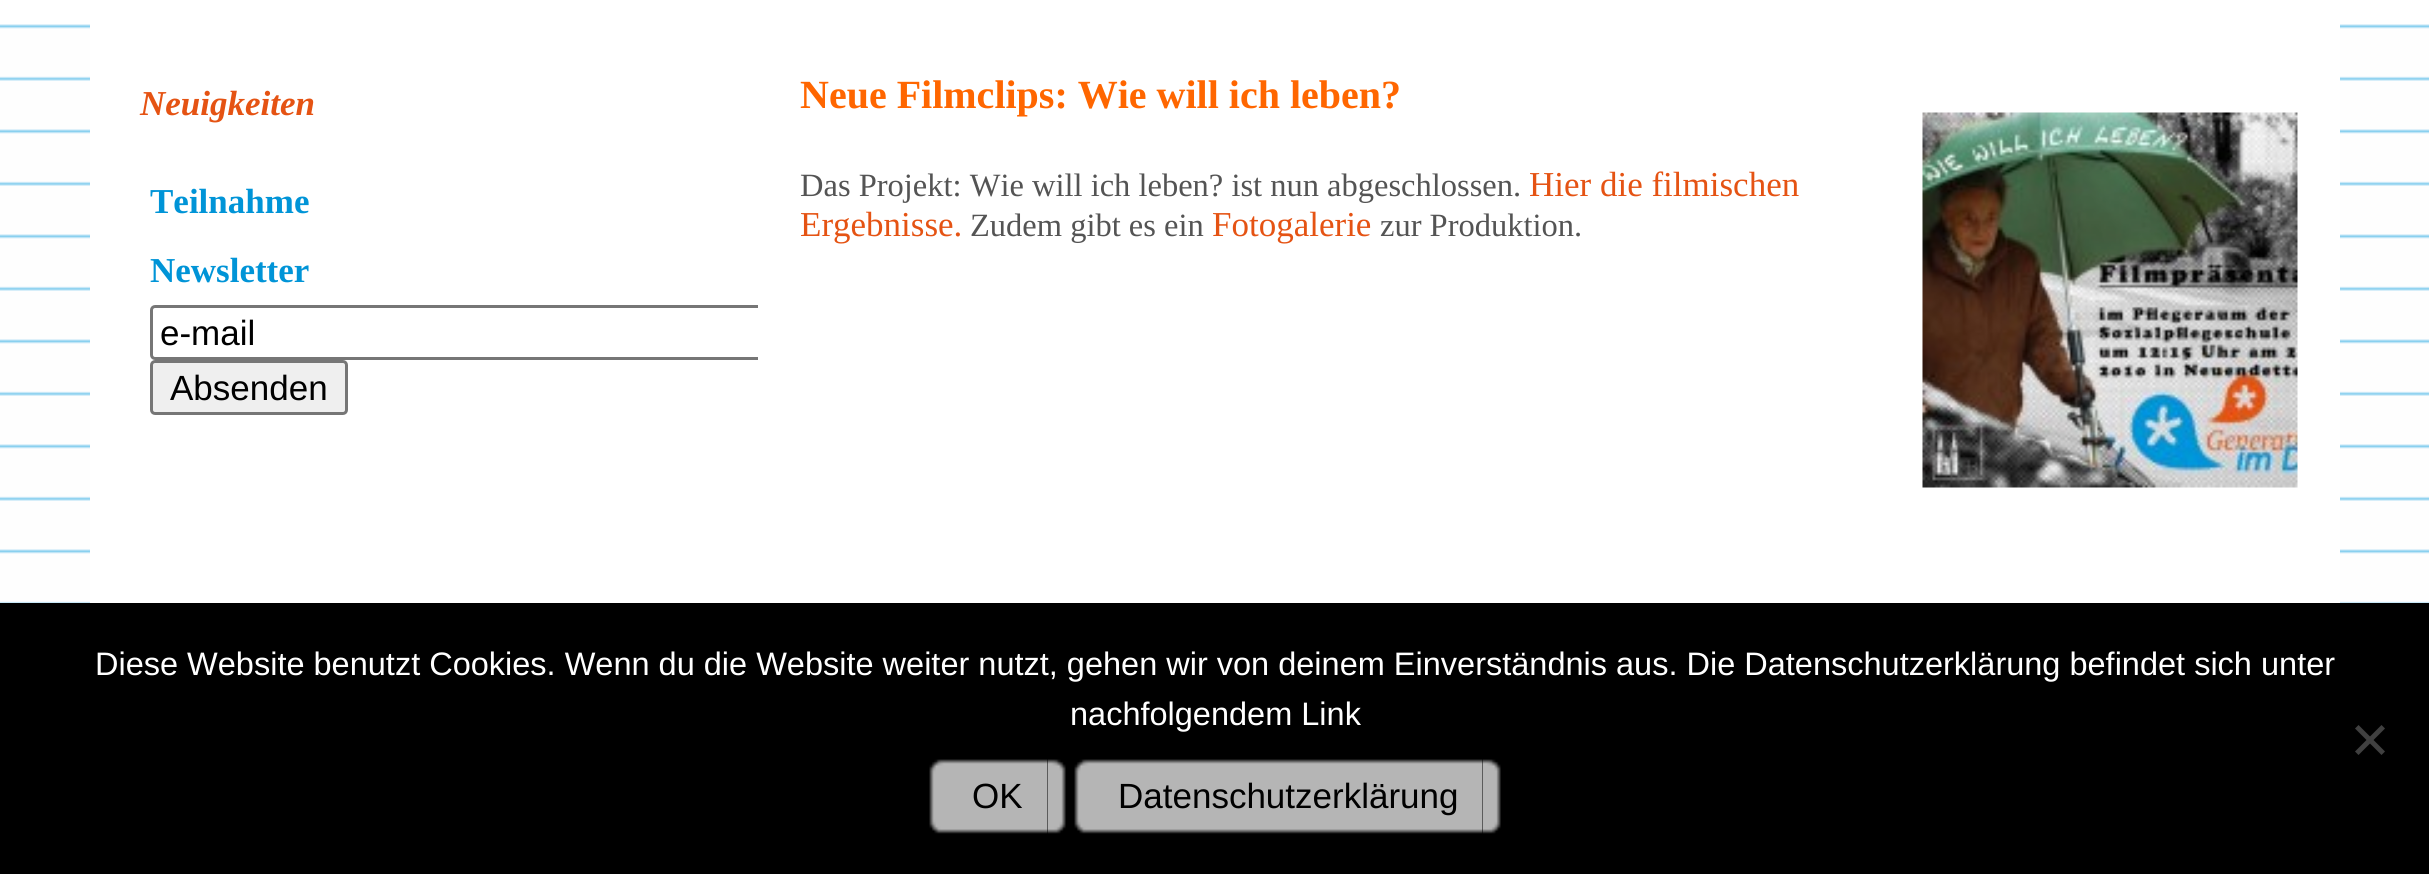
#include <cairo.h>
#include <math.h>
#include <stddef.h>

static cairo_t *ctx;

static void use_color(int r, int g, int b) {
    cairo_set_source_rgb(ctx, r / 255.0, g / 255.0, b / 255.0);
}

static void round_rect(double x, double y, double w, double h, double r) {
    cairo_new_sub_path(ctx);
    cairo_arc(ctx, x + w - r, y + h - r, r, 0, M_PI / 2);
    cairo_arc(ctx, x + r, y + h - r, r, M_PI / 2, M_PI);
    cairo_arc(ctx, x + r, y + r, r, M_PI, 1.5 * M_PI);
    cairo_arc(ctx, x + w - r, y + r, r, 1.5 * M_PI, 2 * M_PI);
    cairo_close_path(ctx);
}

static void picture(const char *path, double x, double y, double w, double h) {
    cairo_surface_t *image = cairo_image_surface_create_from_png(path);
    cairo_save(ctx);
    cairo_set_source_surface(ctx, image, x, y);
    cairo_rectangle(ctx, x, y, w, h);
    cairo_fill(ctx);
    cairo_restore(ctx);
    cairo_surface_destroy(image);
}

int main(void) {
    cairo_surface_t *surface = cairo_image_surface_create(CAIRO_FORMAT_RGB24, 2429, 874);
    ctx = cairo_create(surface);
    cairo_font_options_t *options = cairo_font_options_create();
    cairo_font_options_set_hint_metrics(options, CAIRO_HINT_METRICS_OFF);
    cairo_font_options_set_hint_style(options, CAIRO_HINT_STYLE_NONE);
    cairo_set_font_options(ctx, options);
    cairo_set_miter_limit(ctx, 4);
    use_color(255, 255, 255);
    cairo_paint(ctx);
    picture("img1.png", 0, 24, 2429, 579);
    use_color(255, 255, 255);
    cairo_rectangle(ctx, 90, 24, 2250, 579);
    cairo_fill(ctx);
    cairo_select_font_face(ctx, "Liberation Serif", CAIRO_FONT_SLANT_ITALIC, CAIRO_FONT_WEIGHT_BOLD);
    cairo_set_font_size(ctx, 35);
    use_color(229, 83, 19);
    cairo_move_to(ctx, 140, 115);
    cairo_show_text(ctx, "Neuigkeiten");
    cairo_select_font_face(ctx, "Liberation Serif", CAIRO_FONT_SLANT_NORMAL, CAIRO_FONT_WEIGHT_BOLD);
    use_color(0, 148, 215);
    cairo_move_to(ctx, 150, 213);
    cairo_show_text(ctx, "Teilnahme");
    cairo_move_to(ctx, 150, 282);
    cairo_show_text(ctx, "Newsletter");
    cairo_save(ctx);
    cairo_rectangle(ctx, 90, 33, 668, 442);
    cairo_clip(ctx);
    round_rect(151.5, 306.5, 672, 52, 3.5);
    use_color(118, 118, 118);
    cairo_set_line_width(ctx, 3);
    cairo_stroke(ctx);
    cairo_restore(ctx);
    cairo_select_font_face(ctx, "Liberation Sans", CAIRO_FONT_SLANT_NORMAL, CAIRO_FONT_WEIGHT_NORMAL);
    use_color(0, 0, 0);
    cairo_move_to(ctx, 160, 345);
    cairo_show_text(ctx, "e-mail");
    use_color(239, 239, 239);
    round_rect(151.5, 361.5, 195, 52, 3.5);
    cairo_fill_preserve(ctx);
    use_color(118, 118, 118);
    cairo_set_line_width(ctx, 3);
    cairo_stroke(ctx);
    use_color(0, 0, 0);
    cairo_move_to(ctx, 170, 400);
    cairo_show_text(ctx, "Absenden");
    cairo_select_font_face(ctx, "Liberation Serif", CAIRO_FONT_SLANT_NORMAL, CAIRO_FONT_WEIGHT_BOLD);
    cairo_set_font_size(ctx, 40);
    use_color(255, 102, 0);
    cairo_move_to(ctx, 800, 108);
    cairo_show_text(ctx, "Neue Filmclips: Wie will ich leben?");
    picture("img2.png", 1922, 112, 376, 376);
    cairo_select_font_face(ctx, "Liberation Serif", CAIRO_FONT_SLANT_NORMAL, CAIRO_FONT_WEIGHT_NORMAL);
    cairo_set_font_size(ctx, 32.5);
    use_color(84, 84, 84);
    cairo_move_to(ctx, 800, 196);
    cairo_show_text(ctx, "Das Projekt: Wie will ich leben? ist nun abgeschlossen.");
    cairo_set_font_size(ctx, 35);
    use_color(229, 83, 19);
    cairo_move_to(ctx, 1529, 196);
    cairo_show_text(ctx, "Hier die filmischen");
    cairo_move_to(ctx, 800, 236);
    cairo_show_text(ctx, "Ergebnisse.");
    cairo_set_font_size(ctx, 32.5);
    use_color(84, 84, 84);
    cairo_move_to(ctx, 970, 236);
    cairo_show_text(ctx, "Zudem gibt es ein");
    cairo_set_font_size(ctx, 35);
    use_color(229, 83, 19);
    cairo_move_to(ctx, 1212, 236);
    cairo_show_text(ctx, "Fotogalerie");
    cairo_set_font_size(ctx, 32.5);
    use_color(84, 84, 84);
    cairo_move_to(ctx, 1380, 236);
    cairo_show_text(ctx, "zur Produktion.");
    use_color(0, 0, 0);
    cairo_rectangle(ctx, 0, 603, 2429, 271);
    cairo_fill(ctx);
    cairo_select_font_face(ctx, "Liberation Sans", CAIRO_FONT_SLANT_NORMAL, CAIRO_FONT_WEIGHT_NORMAL);
    use_color(255, 255, 255);
    cairo_move_to(ctx, 95, 675);
    cairo_show_text(ctx, "Diese Website benutzt Cookies. Wenn du die Website weiter nutzt, gehen wir von deinem Einverständnis aus. Die Datenschutzerklärung befindet sich unter");
    cairo_move_to(ctx, 1070, 725);
    cairo_show_text(ctx, "nachfolgendem Link");
    use_color(64, 64, 64);
    cairo_new_path(ctx);
    cairo_move_to(ctx, 2381.5, 725);
    cairo_line_to(ctx, 2385, 728.5);
    cairo_line_to(ctx, 2358.5, 755);
    cairo_line_to(ctx, 2355, 751.5);
    cairo_close_path(ctx);
    cairo_fill(ctx);
    cairo_new_path(ctx);
    cairo_move_to(ctx, 2355, 728.5);
    cairo_line_to(ctx, 2358.5, 725);
    cairo_line_to(ctx, 2385, 751.5);
    cairo_line_to(ctx, 2381.5, 755);
    cairo_close_path(ctx);
    cairo_fill(ctx);
    picture("img3.png", 929, 759, 119, 75);
    picture("img4.png", 1048, 759, 18, 75);
    cairo_set_font_size(ctx, 35);
    use_color(0, 0, 0);
    cairo_move_to(ctx, 972, 808);
    cairo_show_text(ctx, "OK");
    picture("img5.png", 1074, 759, 409, 75);
    picture("img6.png", 1483, 759, 18, 75);
    cairo_move_to(ctx, 1118, 808);
    cairo_show_text(ctx, "Datenschutzerklärung");
    cairo_surface_write_to_png(surface, "result.png");
    cairo_font_options_destroy(options);
    cairo_destroy(ctx);
    cairo_surface_destroy(surface);
    return 0;
}
